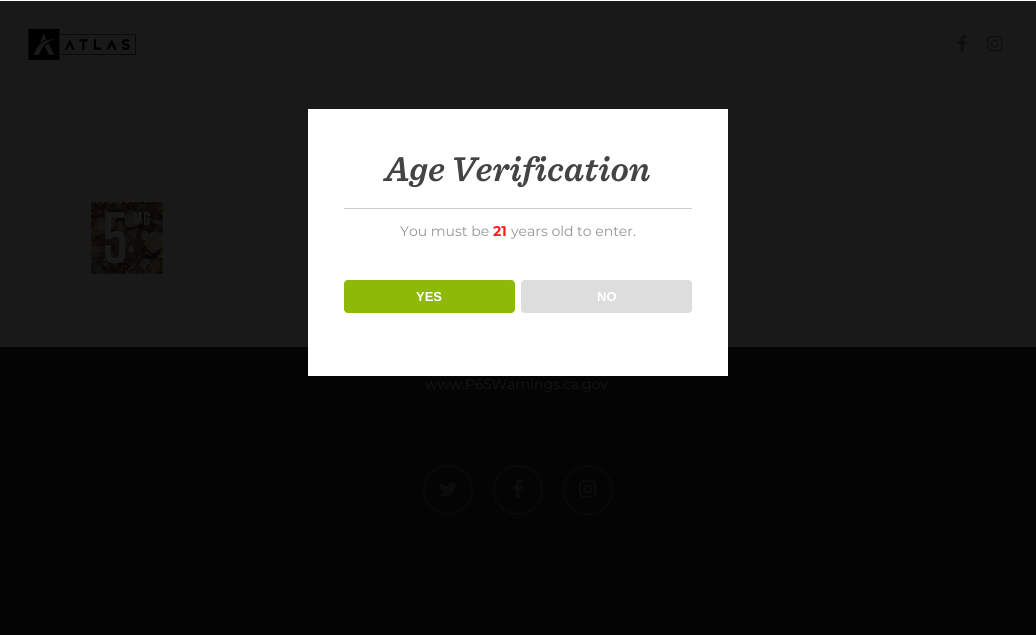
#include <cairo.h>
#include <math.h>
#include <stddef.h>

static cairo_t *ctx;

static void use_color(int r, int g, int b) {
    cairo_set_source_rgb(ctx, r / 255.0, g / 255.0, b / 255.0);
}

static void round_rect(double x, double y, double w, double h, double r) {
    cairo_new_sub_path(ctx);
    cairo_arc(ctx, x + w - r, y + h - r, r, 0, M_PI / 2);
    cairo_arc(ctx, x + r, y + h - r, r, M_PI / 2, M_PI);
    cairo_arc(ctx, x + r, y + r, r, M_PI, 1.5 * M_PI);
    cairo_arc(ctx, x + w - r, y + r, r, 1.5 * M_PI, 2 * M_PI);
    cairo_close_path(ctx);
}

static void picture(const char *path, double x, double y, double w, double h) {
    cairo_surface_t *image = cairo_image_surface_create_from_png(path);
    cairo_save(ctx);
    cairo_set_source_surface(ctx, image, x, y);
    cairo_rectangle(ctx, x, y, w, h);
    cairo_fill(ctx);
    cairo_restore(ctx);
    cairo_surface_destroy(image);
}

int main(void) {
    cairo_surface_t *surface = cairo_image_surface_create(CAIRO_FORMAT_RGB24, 1036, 635);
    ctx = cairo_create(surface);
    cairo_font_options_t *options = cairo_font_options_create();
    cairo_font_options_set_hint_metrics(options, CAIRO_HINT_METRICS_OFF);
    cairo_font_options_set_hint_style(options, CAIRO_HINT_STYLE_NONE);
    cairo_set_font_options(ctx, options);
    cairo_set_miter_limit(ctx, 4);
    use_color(25, 25, 25);
    cairo_paint(ctx);
    use_color(255, 255, 255);
    cairo_rectangle(ctx, 0, 0, 1036, 1);
    cairo_fill(ctx);
    picture("img1.png", 28, 28, 108, 33);
    picture("img2.png", 957, 35, 10, 17);
    picture("img3.png", 987, 35, 16, 17);
    use_color(4, 4, 4);
    cairo_rectangle(ctx, 0, 347, 1036, 288);
    cairo_fill(ctx);
    use_color(255, 255, 255);
    cairo_rectangle(ctx, 308, 109, 420, 267);
    cairo_fill(ctx);
    use_color(204, 204, 204);
    cairo_rectangle(ctx, 344, 208, 348, 1);
    cairo_fill(ctx);
    cairo_select_font_face(ctx, "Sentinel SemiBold", CAIRO_FONT_SLANT_ITALIC, CAIRO_FONT_WEIGHT_NORMAL);
    cairo_set_font_size(ctx, 36);
    use_color(68, 68, 68);
    cairo_move_to(ctx, 385, 181);
    cairo_show_text(ctx, "Age Verification");
    cairo_select_font_face(ctx, "Montserrat", CAIRO_FONT_SLANT_NORMAL, CAIRO_FONT_WEIGHT_NORMAL);
    cairo_set_font_size(ctx, 14);
    use_color(149, 149, 149);
    cairo_move_to(ctx, 400, 236);
    cairo_show_text(ctx, "You must be");
    cairo_select_font_face(ctx, "Montserrat", CAIRO_FONT_SLANT_NORMAL, CAIRO_FONT_WEIGHT_BOLD);
    use_color(255, 31, 31);
    cairo_move_to(ctx, 493, 236);
    cairo_show_text(ctx, "21");
    cairo_select_font_face(ctx, "Montserrat", CAIRO_FONT_SLANT_NORMAL, CAIRO_FONT_WEIGHT_NORMAL);
    use_color(149, 149, 149);
    cairo_move_to(ctx, 511, 236);
    cairo_show_text(ctx, "years old to enter.");
    use_color(142, 185, 8);
    round_rect(344, 280, 171, 33, 4);
    cairo_fill(ctx);
    cairo_select_font_face(ctx, "Liberation Sans", CAIRO_FONT_SLANT_NORMAL, CAIRO_FONT_WEIGHT_BOLD);
    cairo_set_font_size(ctx, 13);
    use_color(255, 255, 255);
    cairo_move_to(ctx, 416, 301);
    cairo_show_text(ctx, "YES");
    use_color(221, 221, 221);
    round_rect(521, 280, 171, 33, 4);
    cairo_fill(ctx);
    use_color(255, 255, 255);
    cairo_move_to(ctx, 597, 301);
    cairo_show_text(ctx, "NO");
    picture("img4.png", 90, 129, 146, 146);
    cairo_select_font_face(ctx, "Montserrat", CAIRO_FONT_SLANT_NORMAL, CAIRO_FONT_WEIGHT_NORMAL);
    cairo_set_font_size(ctx, 14);
    use_color(20, 20, 20);
    cairo_move_to(ctx, 425, 389);
    cairo_show_text(ctx, "www.P65Warnings.ca.gov");
    picture("img5.png", 439, 482, 18, 15);
    cairo_arc(ctx, 448, 490, 24, 0, 2 * M_PI);
    use_color(8, 8, 8);
    cairo_stroke(ctx);
    picture("img6.png", 513, 479, 10, 19);
    cairo_arc(ctx, 518, 490, 24, 0, 2 * M_PI);
    cairo_stroke(ctx);
    picture("img7.png", 579, 480, 18, 18);
    cairo_arc(ctx, 588, 490, 24, 0, 2 * M_PI);
    cairo_stroke(ctx);
    cairo_surface_write_to_png(surface, "result.png");
    cairo_font_options_destroy(options);
    cairo_destroy(ctx);
    cairo_surface_destroy(surface);
    return 0;
}
